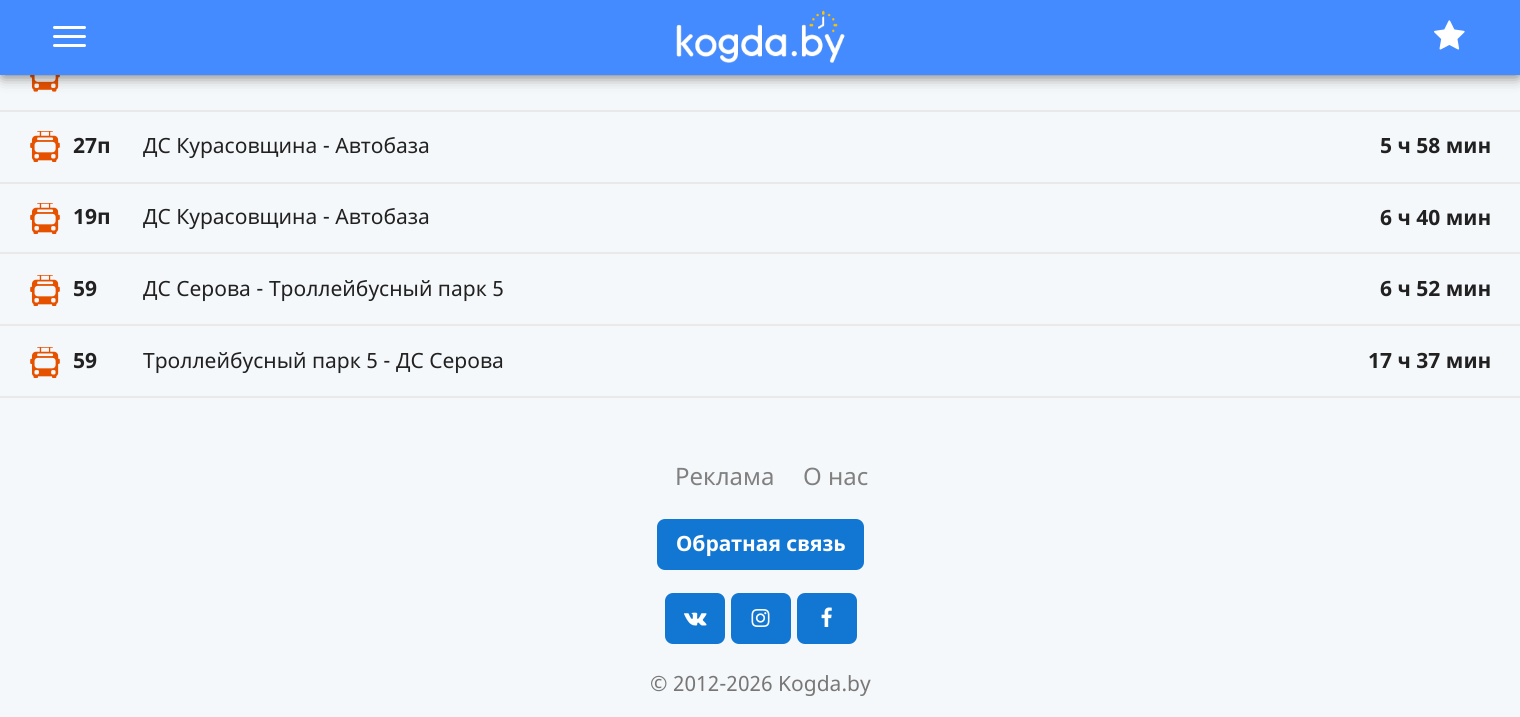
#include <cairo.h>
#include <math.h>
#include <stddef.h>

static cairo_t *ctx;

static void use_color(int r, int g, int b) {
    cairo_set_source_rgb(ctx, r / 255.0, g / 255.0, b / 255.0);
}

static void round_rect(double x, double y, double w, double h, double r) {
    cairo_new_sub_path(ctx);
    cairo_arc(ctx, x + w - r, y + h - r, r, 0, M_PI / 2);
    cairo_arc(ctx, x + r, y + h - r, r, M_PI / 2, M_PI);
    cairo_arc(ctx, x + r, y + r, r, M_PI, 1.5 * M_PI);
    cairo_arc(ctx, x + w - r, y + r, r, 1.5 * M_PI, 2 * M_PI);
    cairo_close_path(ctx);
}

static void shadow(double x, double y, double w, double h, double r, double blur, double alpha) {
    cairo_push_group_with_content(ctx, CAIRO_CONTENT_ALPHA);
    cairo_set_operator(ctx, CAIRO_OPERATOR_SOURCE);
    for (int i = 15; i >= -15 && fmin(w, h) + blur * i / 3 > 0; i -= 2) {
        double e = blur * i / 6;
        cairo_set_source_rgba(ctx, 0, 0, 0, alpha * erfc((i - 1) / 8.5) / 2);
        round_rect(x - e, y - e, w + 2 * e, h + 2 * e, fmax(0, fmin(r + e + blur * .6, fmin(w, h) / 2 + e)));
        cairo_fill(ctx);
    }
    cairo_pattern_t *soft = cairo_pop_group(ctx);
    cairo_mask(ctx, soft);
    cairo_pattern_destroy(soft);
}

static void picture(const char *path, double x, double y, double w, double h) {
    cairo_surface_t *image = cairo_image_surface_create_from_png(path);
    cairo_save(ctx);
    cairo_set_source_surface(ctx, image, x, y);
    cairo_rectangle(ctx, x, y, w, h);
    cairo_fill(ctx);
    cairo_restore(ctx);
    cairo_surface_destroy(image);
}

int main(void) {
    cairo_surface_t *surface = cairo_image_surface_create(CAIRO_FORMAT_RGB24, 1520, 717);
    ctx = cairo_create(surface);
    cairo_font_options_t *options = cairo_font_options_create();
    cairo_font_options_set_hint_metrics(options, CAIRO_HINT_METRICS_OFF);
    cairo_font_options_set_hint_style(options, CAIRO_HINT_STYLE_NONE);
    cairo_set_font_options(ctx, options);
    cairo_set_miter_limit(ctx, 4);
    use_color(245, 248, 250);
    cairo_paint(ctx);
    picture("img3.png", 30, 75, 30, 17);
    use_color(0, 0, 0);
    shadow(3, 6, 1515, 69, 0, 7.5, 0.65);
    use_color(67, 139, 255);
    cairo_rectangle(ctx, 0, 0, 1520, 75);
    cairo_fill(ctx);
    use_color(255, 255, 255);
    round_rect(53, 26, 33, 3, 1.5);
    cairo_fill(ctx);
    round_rect(53, 35, 33, 3, 1.5);
    cairo_fill(ctx);
    round_rect(53, 44, 33, 3, 1.5);
    cairo_fill(ctx);
    picture("img1.png", 676, 10, 169, 53);
    picture("img2.png", 1434, 20, 31, 30);
    use_color(233, 233, 233);
    cairo_rectangle(ctx, 0, 110, 1520, 2);
    cairo_fill(ctx);
    cairo_rectangle(ctx, 0, 182, 1520, 2);
    cairo_fill(ctx);
    picture("img4.png", 30, 131, 30, 31);
    cairo_select_font_face(ctx, "Noto Sans", CAIRO_FONT_SLANT_NORMAL, CAIRO_FONT_WEIGHT_BOLD);
    cairo_set_font_size(ctx, 21);
    use_color(33, 33, 33);
    cairo_move_to(ctx, 73, 153);
    cairo_show_text(ctx, "27п");
    cairo_select_font_face(ctx, "Noto Sans", CAIRO_FONT_SLANT_NORMAL, CAIRO_FONT_WEIGHT_NORMAL);
    cairo_move_to(ctx, 143, 153);
    cairo_show_text(ctx, "ДС Курасовщина - Автобаза");
    cairo_select_font_face(ctx, "Noto Sans", CAIRO_FONT_SLANT_NORMAL, CAIRO_FONT_WEIGHT_BOLD);
    cairo_move_to(ctx, 1380, 153);
    cairo_show_text(ctx, "5 ч 58 мин");
    use_color(233, 233, 233);
    cairo_rectangle(ctx, 0, 252, 1520, 2);
    cairo_fill(ctx);
    picture("img4.png", 30, 203, 30, 31);
    use_color(33, 33, 33);
    cairo_move_to(ctx, 73, 224);
    cairo_show_text(ctx, "19п");
    cairo_select_font_face(ctx, "Noto Sans", CAIRO_FONT_SLANT_NORMAL, CAIRO_FONT_WEIGHT_NORMAL);
    cairo_move_to(ctx, 143, 224);
    cairo_show_text(ctx, "ДС Курасовщина - Автобаза");
    cairo_select_font_face(ctx, "Noto Sans", CAIRO_FONT_SLANT_NORMAL, CAIRO_FONT_WEIGHT_BOLD);
    cairo_move_to(ctx, 1380, 225);
    cairo_show_text(ctx, "6 ч 40 мин");
    use_color(233, 233, 233);
    cairo_rectangle(ctx, 0, 324, 1520, 2);
    cairo_fill(ctx);
    picture("img4.png", 30, 275, 30, 31);
    use_color(33, 33, 33);
    cairo_move_to(ctx, 73, 296);
    cairo_show_text(ctx, "59");
    cairo_select_font_face(ctx, "Noto Sans", CAIRO_FONT_SLANT_NORMAL, CAIRO_FONT_WEIGHT_NORMAL);
    cairo_move_to(ctx, 143, 296);
    cairo_show_text(ctx, "ДС Серова - Троллейбусный парк 5");
    cairo_select_font_face(ctx, "Noto Sans", CAIRO_FONT_SLANT_NORMAL, CAIRO_FONT_WEIGHT_BOLD);
    cairo_move_to(ctx, 1380, 296);
    cairo_show_text(ctx, "6 ч 52 мин");
    use_color(233, 233, 233);
    cairo_rectangle(ctx, 0, 396, 1520, 2);
    cairo_fill(ctx);
    picture("img4.png", 30, 347, 30, 31);
    use_color(33, 33, 33);
    cairo_move_to(ctx, 73, 368);
    cairo_show_text(ctx, "59");
    cairo_select_font_face(ctx, "Noto Sans", CAIRO_FONT_SLANT_NORMAL, CAIRO_FONT_WEIGHT_NORMAL);
    cairo_move_to(ctx, 143, 368);
    cairo_show_text(ctx, "Троллейбусный парк 5 - ДС Серова");
    cairo_select_font_face(ctx, "Noto Sans", CAIRO_FONT_SLANT_NORMAL, CAIRO_FONT_WEIGHT_BOLD);
    cairo_move_to(ctx, 1368, 368);
    cairo_show_text(ctx, "17 ч 37 мин");
    cairo_select_font_face(ctx, "Noto Sans", CAIRO_FONT_SLANT_NORMAL, CAIRO_FONT_WEIGHT_NORMAL);
    cairo_set_font_size(ctx, 24);
    use_color(128, 128, 128);
    cairo_move_to(ctx, 675, 485);
    cairo_show_text(ctx, "Реклама");
    cairo_move_to(ctx, 803, 485);
    cairo_show_text(ctx, "О нас");
    use_color(18, 119, 211);
    round_rect(657, 519, 207, 51, 8);
    cairo_fill(ctx);
    cairo_select_font_face(ctx, "Noto Sans", CAIRO_FONT_SLANT_NORMAL, CAIRO_FONT_WEIGHT_BOLD);
    cairo_set_font_size(ctx, 21);
    use_color(255, 255, 255);
    cairo_move_to(ctx, 676, 551);
    cairo_show_text(ctx, "Обратная связь");
    use_color(18, 119, 211);
    round_rect(665, 593, 60, 51, 8);
    cairo_fill(ctx);
    picture("img5.png", 684, 612, 23, 14);
    round_rect(731, 593, 60, 51, 8);
    cairo_fill(ctx);
    picture("img6.png", 751, 609, 19, 18);
    round_rect(797, 593, 60, 51, 8);
    cairo_fill(ctx);
    picture("img7.png", 821, 607, 11, 20);
    cairo_select_font_face(ctx, "Noto Sans", CAIRO_FONT_SLANT_NORMAL, CAIRO_FONT_WEIGHT_NORMAL);
    use_color(119, 119, 119);
    cairo_move_to(ctx, 650, 691);
    cairo_show_text(ctx, "© 2012-2026 Kogda.by");
    cairo_surface_write_to_png(surface, "result.png");
    cairo_font_options_destroy(options);
    cairo_destroy(ctx);
    cairo_surface_destroy(surface);
    return 0;
}
